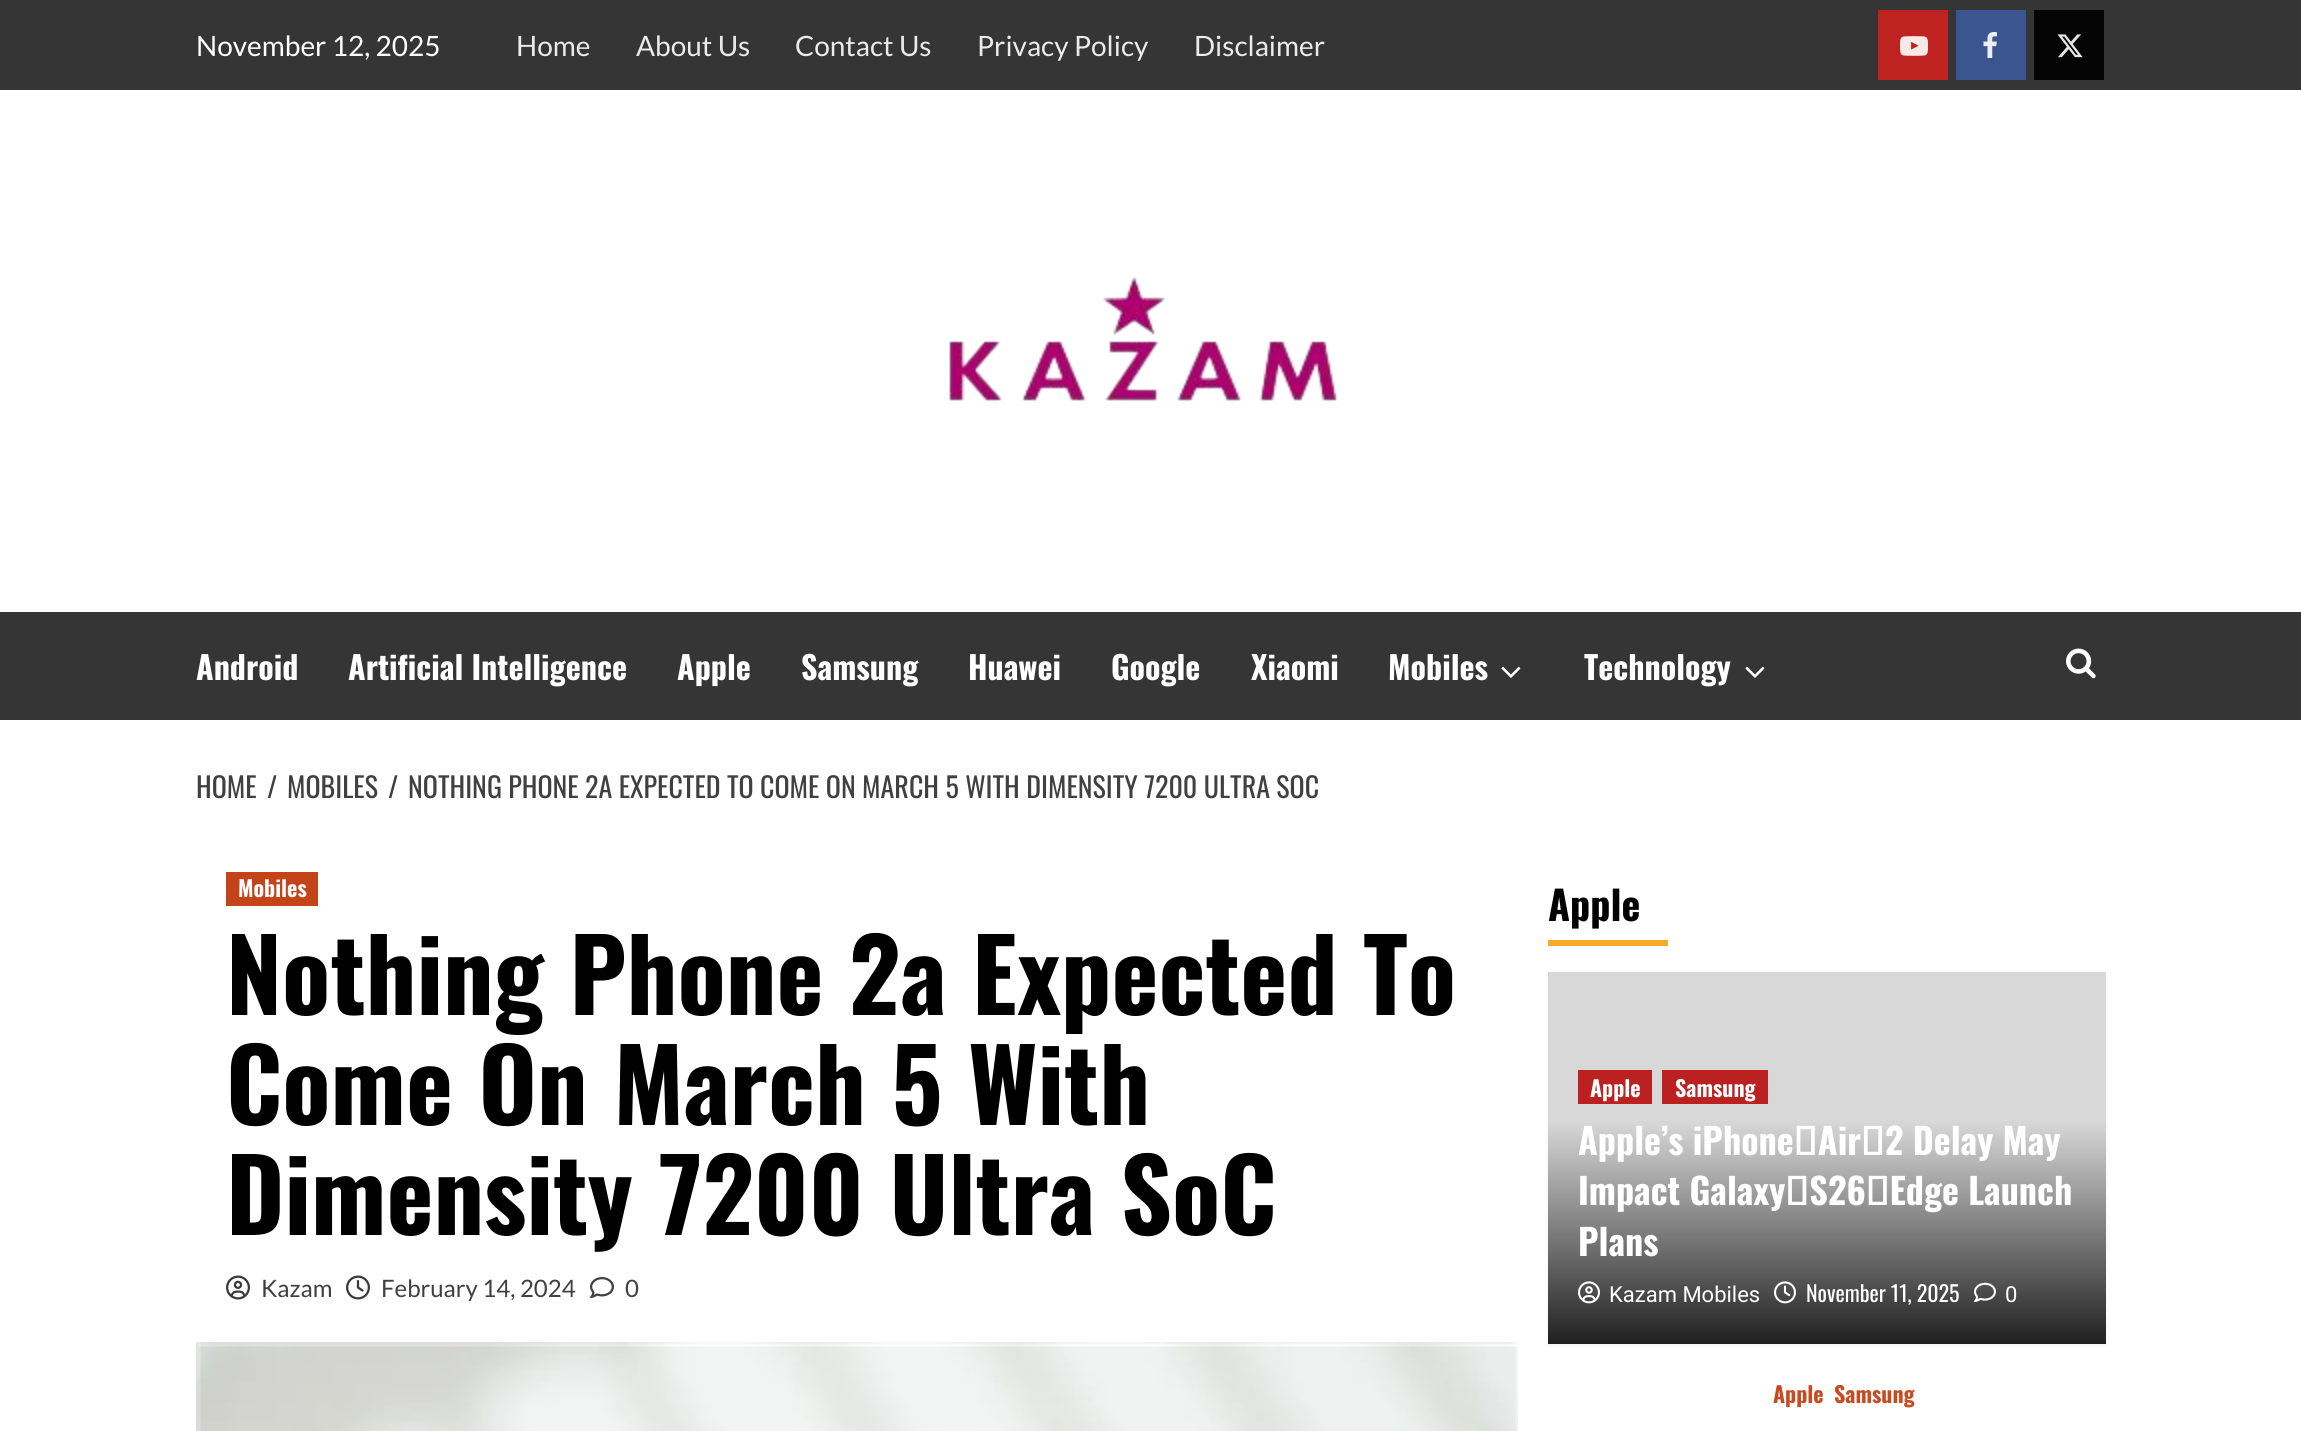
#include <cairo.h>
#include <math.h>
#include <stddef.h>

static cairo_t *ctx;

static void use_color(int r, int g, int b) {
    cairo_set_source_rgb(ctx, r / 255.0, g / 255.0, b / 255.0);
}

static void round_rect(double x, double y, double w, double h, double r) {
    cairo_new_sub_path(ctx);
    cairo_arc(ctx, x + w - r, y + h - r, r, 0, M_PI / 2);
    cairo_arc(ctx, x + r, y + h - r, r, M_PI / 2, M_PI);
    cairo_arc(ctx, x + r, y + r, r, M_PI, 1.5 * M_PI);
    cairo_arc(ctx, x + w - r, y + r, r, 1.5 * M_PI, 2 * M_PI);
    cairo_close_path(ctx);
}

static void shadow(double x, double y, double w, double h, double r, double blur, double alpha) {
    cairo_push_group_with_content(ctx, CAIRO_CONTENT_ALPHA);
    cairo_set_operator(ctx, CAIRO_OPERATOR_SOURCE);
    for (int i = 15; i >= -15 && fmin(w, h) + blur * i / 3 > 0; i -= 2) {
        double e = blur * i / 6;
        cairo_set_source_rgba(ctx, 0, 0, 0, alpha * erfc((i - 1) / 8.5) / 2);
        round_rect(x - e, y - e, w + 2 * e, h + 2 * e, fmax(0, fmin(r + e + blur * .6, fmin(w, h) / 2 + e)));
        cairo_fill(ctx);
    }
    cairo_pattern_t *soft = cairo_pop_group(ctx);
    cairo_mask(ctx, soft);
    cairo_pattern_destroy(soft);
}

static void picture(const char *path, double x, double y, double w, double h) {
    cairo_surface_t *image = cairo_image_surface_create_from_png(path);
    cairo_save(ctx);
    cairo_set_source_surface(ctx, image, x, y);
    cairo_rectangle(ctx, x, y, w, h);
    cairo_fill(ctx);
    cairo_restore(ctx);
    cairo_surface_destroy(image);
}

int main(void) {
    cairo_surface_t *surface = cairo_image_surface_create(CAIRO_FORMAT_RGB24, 2301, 1431);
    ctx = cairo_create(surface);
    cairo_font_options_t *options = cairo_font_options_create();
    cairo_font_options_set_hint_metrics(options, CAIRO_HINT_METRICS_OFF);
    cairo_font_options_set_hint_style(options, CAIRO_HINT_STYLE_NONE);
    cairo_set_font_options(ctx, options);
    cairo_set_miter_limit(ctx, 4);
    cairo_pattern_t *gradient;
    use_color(255, 255, 255);
    cairo_paint(ctx);
    use_color(53, 53, 53);
    cairo_rectangle(ctx, 0, 0, 2301, 90);
    cairo_fill(ctx);
    cairo_select_font_face(ctx, "Lato", CAIRO_FONT_SLANT_NORMAL, CAIRO_FONT_WEIGHT_NORMAL);
    cairo_set_font_size(ctx, 28);
    use_color(255, 255, 255);
    cairo_move_to(ctx, 196, 56);
    cairo_show_text(ctx, "November 12, 2025");
    use_color(235, 235, 235);
    cairo_move_to(ctx, 516, 56);
    cairo_show_text(ctx, "Home");
    cairo_move_to(ctx, 636, 56);
    cairo_show_text(ctx, "About Us");
    cairo_move_to(ctx, 795, 56);
    cairo_show_text(ctx, "Contact Us");
    cairo_move_to(ctx, 977, 56);
    cairo_show_text(ctx, "Privacy Policy");
    cairo_move_to(ctx, 1194, 56);
    cairo_show_text(ctx, "Disclaimer");
    use_color(190, 34, 33);
    cairo_rectangle(ctx, 1878, 10, 70, 70);
    cairo_fill(ctx);
    picture("img1.png", 1900, 36, 28, 20);
    use_color(58, 85, 143);
    cairo_rectangle(ctx, 1956, 10, 70, 70);
    cairo_fill(ctx);
    picture("img2.png", 1983, 32, 14, 26);
    use_color(5, 5, 5);
    cairo_rectangle(ctx, 2034, 10, 70, 70);
    cairo_fill(ctx);
    picture("img3.png", 2057, 34, 26, 24);
    picture("img4.png", 949, 277, 388, 125);
    use_color(53, 53, 53);
    cairo_rectangle(ctx, 0, 612, 2301, 108);
    cairo_fill(ctx);
    cairo_select_font_face(ctx, "Oswald", CAIRO_FONT_SLANT_NORMAL, CAIRO_FONT_WEIGHT_BOLD);
    cairo_set_font_size(ctx, 32);
    use_color(255, 255, 255);
    cairo_move_to(ctx, 196, 680);
    cairo_show_text(ctx, "Android");
    cairo_move_to(ctx, 348, 680);
    cairo_show_text(ctx, "Artificial Intelligence");
    cairo_move_to(ctx, 677, 680);
    cairo_show_text(ctx, "Apple");
    cairo_move_to(ctx, 801, 680);
    cairo_show_text(ctx, "Samsung");
    cairo_move_to(ctx, 968, 680);
    cairo_show_text(ctx, "Huawei");
    cairo_move_to(ctx, 1111, 680);
    cairo_show_text(ctx, "Google");
    cairo_move_to(ctx, 1251, 680);
    cairo_show_text(ctx, "Xiaomi");
    cairo_move_to(ctx, 1388, 680);
    cairo_show_text(ctx, "Mobiles");
    picture("img5.png", 1501, 666, 20, 12);
    cairo_move_to(ctx, 1584, 680);
    cairo_show_text(ctx, "Technology");
    picture("img5.png", 1745, 666, 20, 12);
    picture("img6.png", 2066, 648, 30, 31);
    cairo_select_font_face(ctx, "Oswald", CAIRO_FONT_SLANT_NORMAL, CAIRO_FONT_WEIGHT_NORMAL);
    cairo_set_font_size(ctx, 28);
    use_color(64, 64, 64);
    cairo_move_to(ctx, 196, 798);
    cairo_show_text(ctx, "HOME");
    cairo_move_to(ctx, 267, 798);
    cairo_show_text(ctx, "/");
    cairo_move_to(ctx, 287, 798);
    cairo_show_text(ctx, "MOBILES");
    cairo_move_to(ctx, 388, 798);
    cairo_show_text(ctx, "/");
    cairo_move_to(ctx, 408, 798);
    cairo_show_text(ctx, "NOTHING PHONE 2A EXPECTED TO COME ON MARCH 5 WITH DIMENSITY 7200 ULTRA SOC");
    use_color(196, 67, 24);
    cairo_rectangle(ctx, 226, 872, 92, 34);
    cairo_fill(ctx);
    cairo_select_font_face(ctx, "Oswald", CAIRO_FONT_SLANT_NORMAL, CAIRO_FONT_WEIGHT_BOLD);
    cairo_set_font_size(ctx, 22);
    use_color(255, 255, 255);
    cairo_move_to(ctx, 238, 897);
    cairo_show_text(ctx, "Mobiles");
    cairo_set_font_size(ctx, 100);
    use_color(0, 0, 0);
    cairo_move_to(ctx, 226, 1015);
    cairo_show_text(ctx, "Nothing Phone 2a Expected To");
    cairo_move_to(ctx, 226, 1125);
    cairo_show_text(ctx, "Come On March 5 With");
    cairo_move_to(ctx, 226, 1235);
    cairo_show_text(ctx, "Dimensity 7200 Ultra SoC");
    picture("img7.png", 226, 1275, 24, 25);
    cairo_select_font_face(ctx, "Lato", CAIRO_FONT_SLANT_NORMAL, CAIRO_FONT_WEIGHT_NORMAL);
    cairo_set_font_size(ctx, 24);
    use_color(64, 64, 64);
    cairo_move_to(ctx, 261, 1297);
    cairo_show_text(ctx, "Kazam");
    picture("img8.png", 346, 1275, 24, 25);
    cairo_move_to(ctx, 381, 1297);
    cairo_show_text(ctx, "February 14, 2024");
    picture("img9.png", 590, 1277, 24, 21);
    cairo_move_to(ctx, 625, 1297);
    cairo_show_text(ctx, "0");
    picture("img10.png", 196, 1342, 1322, 89);
    cairo_select_font_face(ctx, "Oswald", CAIRO_FONT_SLANT_NORMAL, CAIRO_FONT_WEIGHT_BOLD);
    cairo_set_font_size(ctx, 40);
    use_color(0, 0, 0);
    cairo_move_to(ctx, 1548, 921);
    cairo_show_text(ctx, "Apple");
    use_color(243, 173, 41);
    cairo_rectangle(ctx, 1548, 940, 120, 6);
    cairo_fill(ctx);
    use_color(0, 0, 0);
    shadow(1548, 974, 558, 372, 0, 2, 0.05);
    gradient = cairo_pattern_create_linear(1827, 972, 1827, 1344);
    cairo_pattern_add_color_stop_rgba(gradient, 0.4, 0.847, 0.847, 0.847, 1);
    cairo_pattern_add_color_stop_rgba(gradient, 1, 0.125, 0.125, 0.125, 1);
    cairo_set_source(ctx, gradient);
    cairo_pattern_destroy(gradient);
    cairo_rectangle(ctx, 1548, 972, 558, 372);
    cairo_fill(ctx);
    use_color(188, 33, 33);
    cairo_rectangle(ctx, 1578, 1070, 74, 34);
    cairo_fill(ctx);
    cairo_set_font_size(ctx, 22);
    use_color(255, 255, 255);
    cairo_move_to(ctx, 1590, 1097);
    cairo_show_text(ctx, "Apple");
    use_color(188, 33, 33);
    cairo_rectangle(ctx, 1662, 1070, 106, 34);
    cairo_fill(ctx);
    use_color(255, 255, 255);
    cairo_move_to(ctx, 1675, 1097);
    cairo_show_text(ctx, "Samsung");
    cairo_set_font_size(ctx, 36);
    cairo_move_to(ctx, 1578, 1155);
    cairo_show_text(ctx, "Apple’s iPhone Air 2 Delay May");
    cairo_move_to(ctx, 1578, 1205);
    cairo_show_text(ctx, "Impact Galaxy S26 Edge Launch");
    cairo_move_to(ctx, 1578, 1256);
    cairo_show_text(ctx, "Plans");
    picture("img11.png", 1578, 1281, 22, 23);
    cairo_select_font_face(ctx, "Roboto", CAIRO_FONT_SLANT_NORMAL, CAIRO_FONT_WEIGHT_NORMAL);
    cairo_set_font_size(ctx, 22);
    cairo_move_to(ctx, 1609, 1302);
    cairo_show_text(ctx, "Kazam Mobiles");
    picture("img12.png", 1774, 1281, 22, 23);
    cairo_select_font_face(ctx, "Oswald", CAIRO_FONT_SLANT_NORMAL, CAIRO_FONT_WEIGHT_NORMAL);
    cairo_move_to(ctx, 1806, 1302);
    cairo_show_text(ctx, "November 11, 2025");
    picture("img13.png", 1974, 1282, 22, 20);
    cairo_select_font_face(ctx, "Roboto", CAIRO_FONT_SLANT_NORMAL, CAIRO_FONT_WEIGHT_NORMAL);
    cairo_move_to(ctx, 2005, 1302);
    cairo_show_text(ctx, "0");
    cairo_select_font_face(ctx, "Oswald", CAIRO_FONT_SLANT_NORMAL, CAIRO_FONT_WEIGHT_BOLD);
    use_color(199, 74, 33);
    cairo_move_to(ctx, 1773, 1403);
    cairo_show_text(ctx, "Apple");
    cairo_move_to(ctx, 1834, 1403);
    cairo_show_text(ctx, "Samsung");
    cairo_surface_write_to_png(surface, "result.png");
    cairo_font_options_destroy(options);
    cairo_destroy(ctx);
    cairo_surface_destroy(surface);
    return 0;
}
